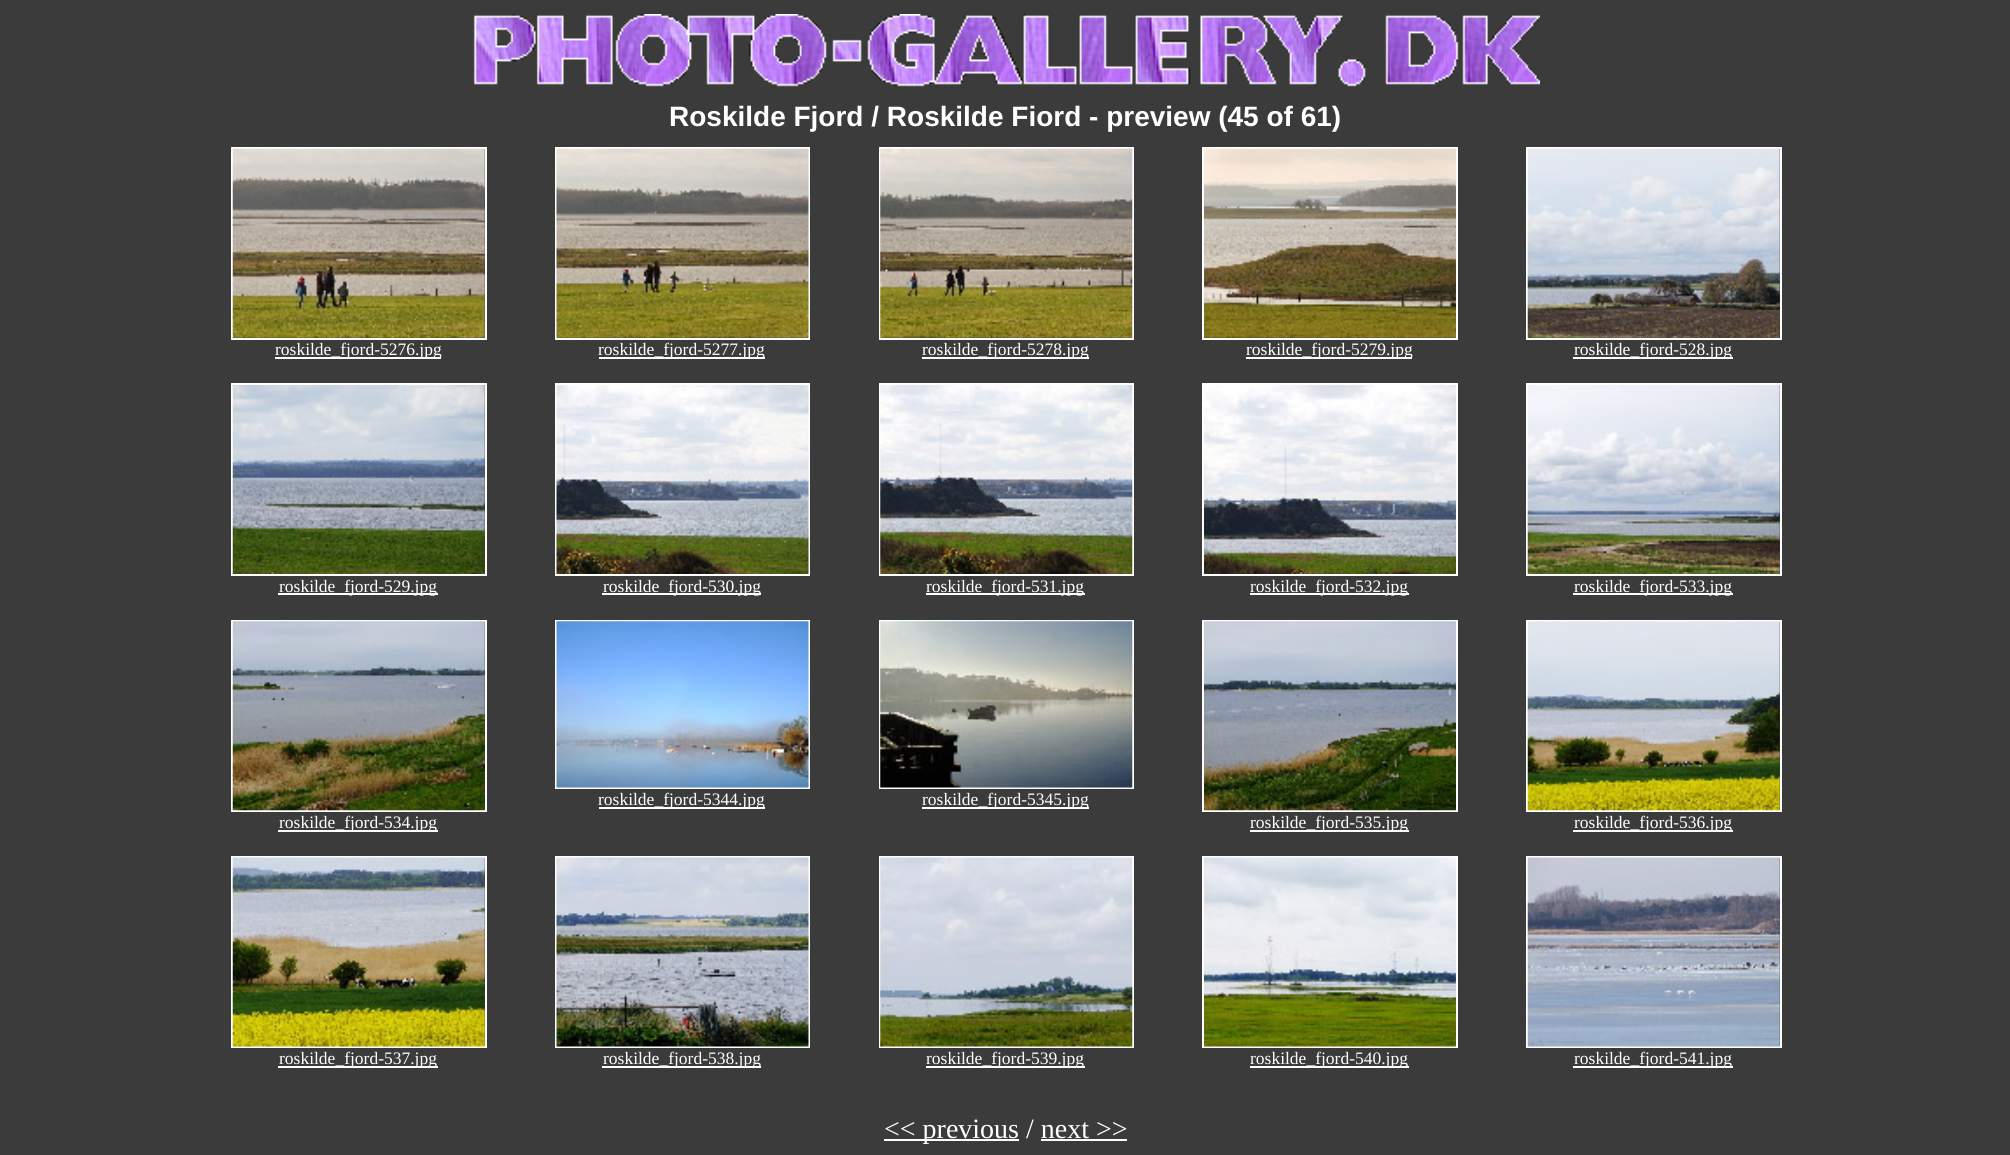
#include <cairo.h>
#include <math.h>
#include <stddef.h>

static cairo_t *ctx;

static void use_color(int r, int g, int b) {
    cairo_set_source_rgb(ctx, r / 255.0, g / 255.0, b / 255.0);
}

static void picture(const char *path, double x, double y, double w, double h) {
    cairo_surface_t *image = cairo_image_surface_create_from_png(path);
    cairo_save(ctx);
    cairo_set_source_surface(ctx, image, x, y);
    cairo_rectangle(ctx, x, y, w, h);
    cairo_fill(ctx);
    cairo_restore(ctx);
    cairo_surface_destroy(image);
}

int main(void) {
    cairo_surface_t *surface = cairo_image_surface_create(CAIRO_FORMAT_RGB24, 2010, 1155);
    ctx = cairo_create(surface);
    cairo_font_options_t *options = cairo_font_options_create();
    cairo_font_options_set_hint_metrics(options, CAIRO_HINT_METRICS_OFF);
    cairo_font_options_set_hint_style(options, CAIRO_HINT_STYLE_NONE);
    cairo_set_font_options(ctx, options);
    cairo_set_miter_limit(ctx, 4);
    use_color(59, 59, 59);
    cairo_paint(ctx);
    picture("img1.png", 473, 14, 1067, 73);
    cairo_select_font_face(ctx, "Liberation Sans", CAIRO_FONT_SLANT_NORMAL, CAIRO_FONT_WEIGHT_BOLD);
    cairo_set_font_size(ctx, 28);
    use_color(255, 255, 255);
    cairo_move_to(ctx, 669, 126);
    cairo_show_text(ctx, "Roskilde Fjord / Roskilde Fiord - preview (45 of 61)");
    cairo_rectangle(ctx, 232, 148, 254, 191);
    cairo_stroke(ctx);
    picture("img2.png", 232, 148, 253, 190);
    cairo_rectangle(ctx, 275, 357, 166, 2);
    cairo_fill(ctx);
    cairo_select_font_face(ctx, "Liberation Serif", CAIRO_FONT_SLANT_NORMAL, CAIRO_FONT_WEIGHT_NORMAL);
    cairo_set_font_size(ctx, 17.5);
    cairo_move_to(ctx, 275, 355);
    cairo_show_text(ctx, "roskilde_fjord-5276.jpg");
    cairo_rectangle(ctx, 556, 148, 253, 191);
    cairo_stroke(ctx);
    picture("img3.png", 556, 148, 253, 190);
    cairo_rectangle(ctx, 599, 357, 166, 2);
    cairo_fill(ctx);
    cairo_move_to(ctx, 598, 355);
    cairo_show_text(ctx, "roskilde_fjord-5277.jpg");
    cairo_rectangle(ctx, 880, 148, 253, 191);
    cairo_stroke(ctx);
    picture("img4.png", 880, 148, 253, 190);
    cairo_rectangle(ctx, 922, 357, 167, 2);
    cairo_fill(ctx);
    cairo_move_to(ctx, 922, 355);
    cairo_show_text(ctx, "roskilde_fjord-5278.jpg");
    cairo_rectangle(ctx, 1203, 148, 254, 191);
    cairo_stroke(ctx);
    picture("img5.png", 1204, 148, 252, 190);
    cairo_rectangle(ctx, 1246, 357, 166, 2);
    cairo_fill(ctx);
    cairo_move_to(ctx, 1246, 355);
    cairo_show_text(ctx, "roskilde_fjord-5279.jpg");
    cairo_rectangle(ctx, 1527, 148, 254, 191);
    cairo_stroke(ctx);
    picture("img6.png", 1527, 148, 253, 190);
    cairo_rectangle(ctx, 1573, 357, 160, 2);
    cairo_fill(ctx);
    cairo_move_to(ctx, 1574, 355);
    cairo_show_text(ctx, "roskilde_fjord-528.jpg");
    cairo_rectangle(ctx, 232, 384, 254, 191);
    cairo_stroke(ctx);
    picture("img7.png", 232, 385, 253, 189);
    cairo_rectangle(ctx, 278, 593, 160, 2);
    cairo_fill(ctx);
    cairo_move_to(ctx, 279, 592);
    cairo_show_text(ctx, "roskilde_fjord-529.jpg");
    cairo_rectangle(ctx, 556, 384, 253, 191);
    cairo_stroke(ctx);
    picture("img8.png", 556, 385, 253, 189);
    cairo_rectangle(ctx, 602, 593, 159, 2);
    cairo_fill(ctx);
    cairo_move_to(ctx, 603, 592);
    cairo_show_text(ctx, "roskilde_fjord-530.jpg");
    cairo_rectangle(ctx, 880, 384, 253, 191);
    cairo_stroke(ctx);
    picture("img9.png", 880, 385, 253, 189);
    cairo_rectangle(ctx, 926, 593, 159, 2);
    cairo_fill(ctx);
    cairo_move_to(ctx, 926, 592);
    cairo_show_text(ctx, "roskilde_fjord-531.jpg");
    cairo_rectangle(ctx, 1203, 384, 254, 191);
    cairo_stroke(ctx);
    picture("img10.png", 1204, 385, 252, 189);
    cairo_rectangle(ctx, 1250, 593, 159, 2);
    cairo_fill(ctx);
    cairo_move_to(ctx, 1250, 592);
    cairo_show_text(ctx, "roskilde_fjord-532.jpg");
    cairo_rectangle(ctx, 1527, 384, 254, 191);
    cairo_stroke(ctx);
    picture("img11.png", 1527, 385, 253, 189);
    cairo_rectangle(ctx, 1573, 593, 160, 2);
    cairo_fill(ctx);
    cairo_move_to(ctx, 1574, 592);
    cairo_show_text(ctx, "roskilde_fjord-533.jpg");
    cairo_rectangle(ctx, 556, 621, 253, 167);
    cairo_stroke(ctx);
    picture("img12.png", 556, 621, 253, 167);
    cairo_rectangle(ctx, 599, 807, 166, 2);
    cairo_fill(ctx);
    cairo_move_to(ctx, 598, 805);
    cairo_show_text(ctx, "roskilde_fjord-5344.jpg");
    cairo_rectangle(ctx, 880, 621, 253, 167);
    cairo_stroke(ctx);
    picture("img13.png", 880, 621, 253, 167);
    cairo_rectangle(ctx, 922, 807, 167, 2);
    cairo_fill(ctx);
    cairo_move_to(ctx, 922, 805);
    cairo_show_text(ctx, "roskilde_fjord-5345.jpg");
    cairo_rectangle(ctx, 232, 621, 254, 190);
    cairo_stroke(ctx);
    picture("img14.png", 232, 621, 253, 190);
    cairo_rectangle(ctx, 278, 830, 160, 2);
    cairo_fill(ctx);
    cairo_move_to(ctx, 279, 828);
    cairo_show_text(ctx, "roskilde_fjord-534.jpg");
    cairo_rectangle(ctx, 1203, 621, 254, 190);
    cairo_stroke(ctx);
    picture("img15.png", 1204, 621, 252, 190);
    cairo_rectangle(ctx, 1250, 830, 159, 2);
    cairo_fill(ctx);
    cairo_move_to(ctx, 1250, 828);
    cairo_show_text(ctx, "roskilde_fjord-535.jpg");
    cairo_rectangle(ctx, 1527, 621, 254, 190);
    cairo_stroke(ctx);
    picture("img16.png", 1527, 621, 253, 190);
    cairo_rectangle(ctx, 1573, 830, 160, 2);
    cairo_fill(ctx);
    cairo_move_to(ctx, 1574, 828);
    cairo_show_text(ctx, "roskilde_fjord-536.jpg");
    cairo_rectangle(ctx, 232, 857, 254, 190);
    cairo_stroke(ctx);
    picture("img17.png", 232, 857, 253, 190);
    cairo_rectangle(ctx, 278, 1066, 160, 2);
    cairo_fill(ctx);
    cairo_move_to(ctx, 279, 1064);
    cairo_show_text(ctx, "roskilde_fjord-537.jpg");
    cairo_rectangle(ctx, 556, 857, 253, 190);
    cairo_stroke(ctx);
    picture("img18.png", 556, 857, 253, 190);
    cairo_rectangle(ctx, 602, 1066, 159, 2);
    cairo_fill(ctx);
    cairo_move_to(ctx, 603, 1064);
    cairo_show_text(ctx, "roskilde_fjord-538.jpg");
    cairo_rectangle(ctx, 880, 857, 253, 190);
    cairo_stroke(ctx);
    picture("img19.png", 880, 857, 253, 190);
    cairo_rectangle(ctx, 926, 1066, 159, 2);
    cairo_fill(ctx);
    cairo_move_to(ctx, 926, 1064);
    cairo_show_text(ctx, "roskilde_fjord-539.jpg");
    cairo_rectangle(ctx, 1203, 857, 254, 190);
    cairo_stroke(ctx);
    picture("img20.png", 1204, 857, 252, 190);
    cairo_rectangle(ctx, 1250, 1066, 159, 2);
    cairo_fill(ctx);
    cairo_move_to(ctx, 1250, 1064);
    cairo_show_text(ctx, "roskilde_fjord-540.jpg");
    cairo_rectangle(ctx, 1527, 857, 254, 190);
    cairo_stroke(ctx);
    picture("img21.png", 1527, 857, 253, 190);
    cairo_rectangle(ctx, 1573, 1066, 160, 2);
    cairo_fill(ctx);
    cairo_move_to(ctx, 1574, 1064);
    cairo_show_text(ctx, "roskilde_fjord-541.jpg");
    cairo_rectangle(ctx, 884, 1139, 135, 2);
    cairo_fill(ctx);
    cairo_set_font_size(ctx, 28);
    cairo_move_to(ctx, 884, 1138);
    cairo_show_text(ctx, "<< previous / next >>");
    cairo_rectangle(ctx, 1041, 1139, 86, 2);
    cairo_fill(ctx);
    cairo_surface_write_to_png(surface, "result.png");
    cairo_font_options_destroy(options);
    cairo_destroy(ctx);
    cairo_surface_destroy(surface);
    return 0;
}
